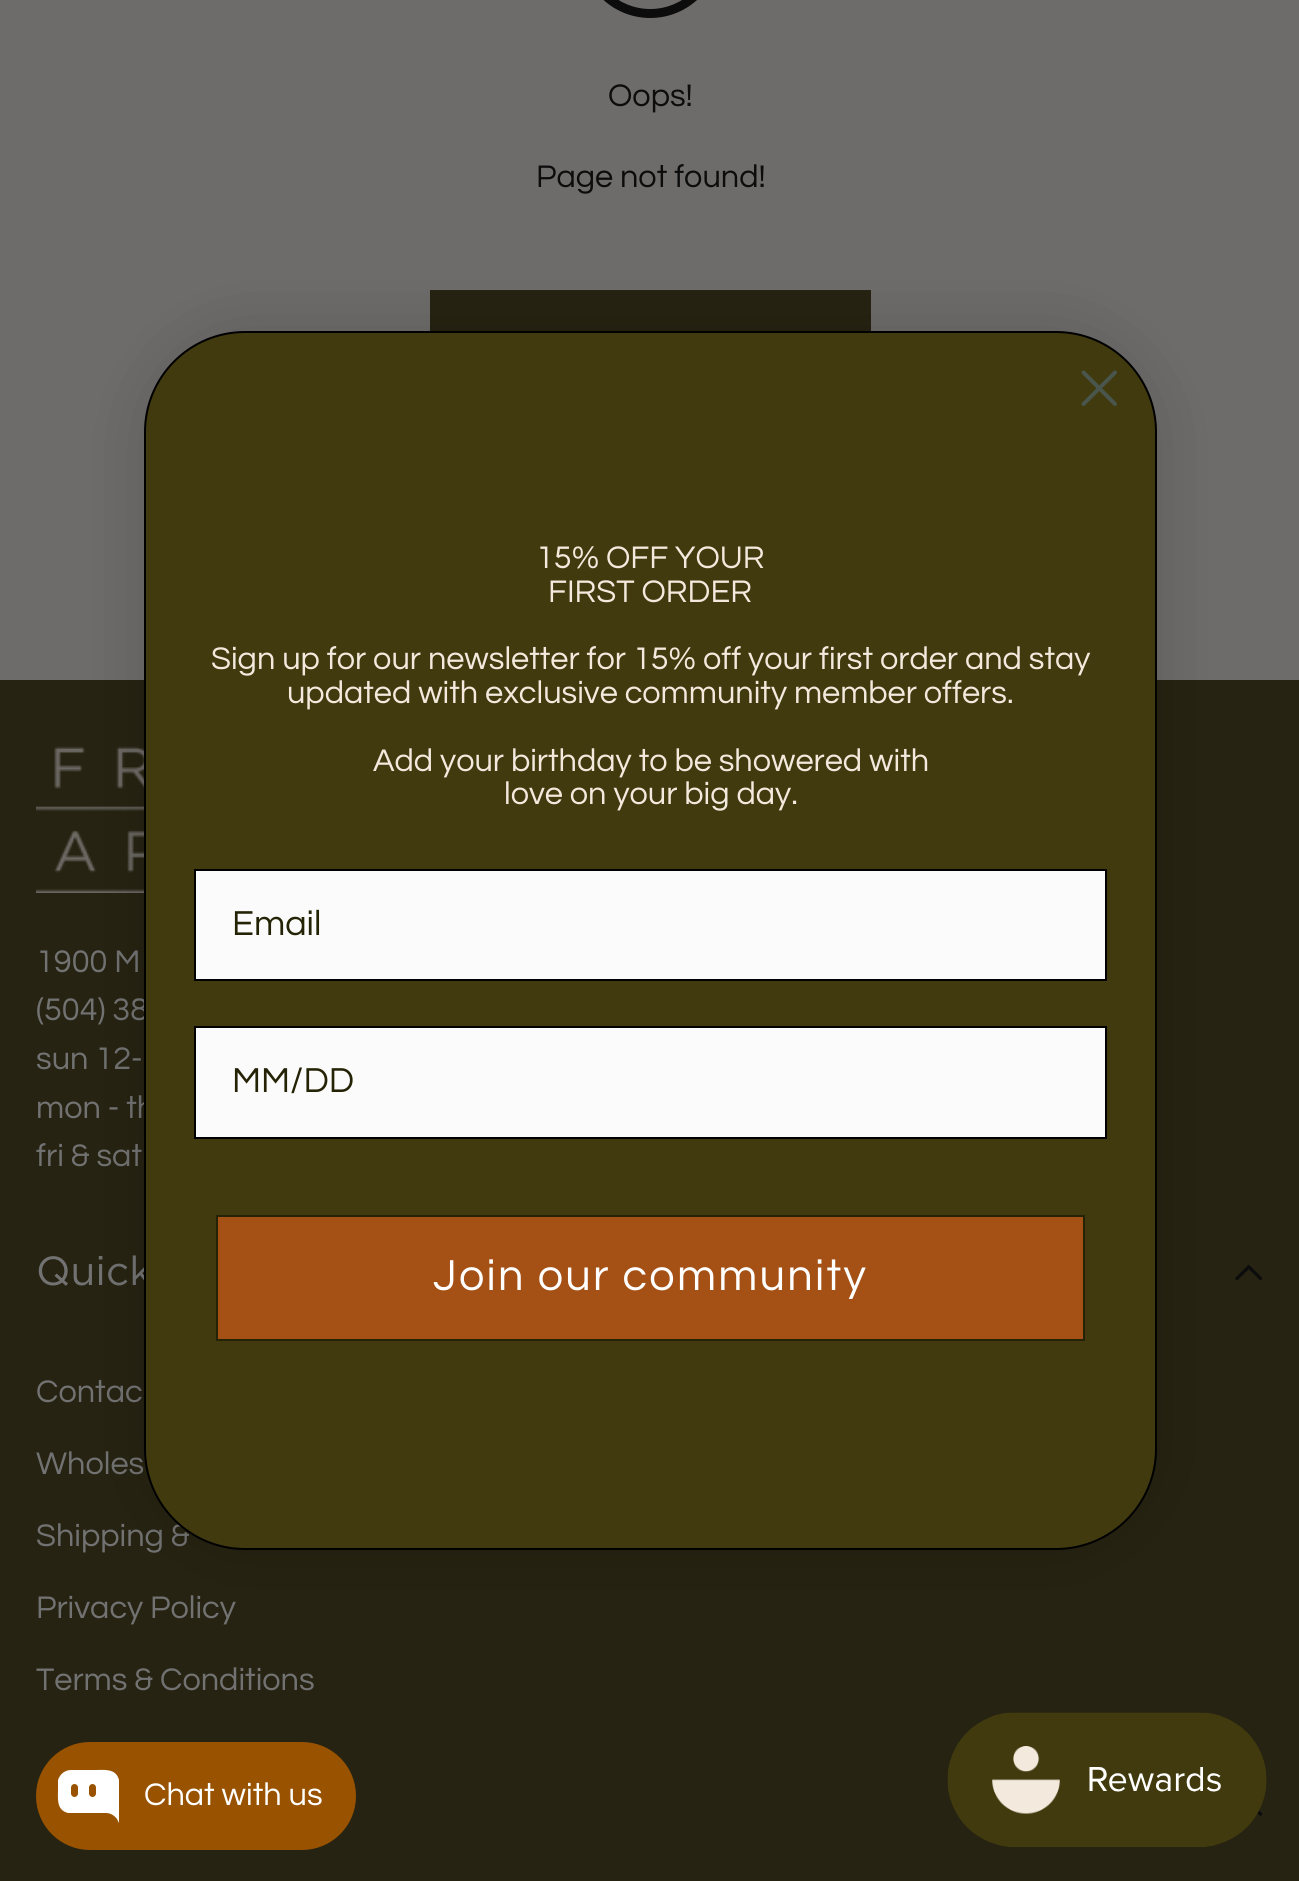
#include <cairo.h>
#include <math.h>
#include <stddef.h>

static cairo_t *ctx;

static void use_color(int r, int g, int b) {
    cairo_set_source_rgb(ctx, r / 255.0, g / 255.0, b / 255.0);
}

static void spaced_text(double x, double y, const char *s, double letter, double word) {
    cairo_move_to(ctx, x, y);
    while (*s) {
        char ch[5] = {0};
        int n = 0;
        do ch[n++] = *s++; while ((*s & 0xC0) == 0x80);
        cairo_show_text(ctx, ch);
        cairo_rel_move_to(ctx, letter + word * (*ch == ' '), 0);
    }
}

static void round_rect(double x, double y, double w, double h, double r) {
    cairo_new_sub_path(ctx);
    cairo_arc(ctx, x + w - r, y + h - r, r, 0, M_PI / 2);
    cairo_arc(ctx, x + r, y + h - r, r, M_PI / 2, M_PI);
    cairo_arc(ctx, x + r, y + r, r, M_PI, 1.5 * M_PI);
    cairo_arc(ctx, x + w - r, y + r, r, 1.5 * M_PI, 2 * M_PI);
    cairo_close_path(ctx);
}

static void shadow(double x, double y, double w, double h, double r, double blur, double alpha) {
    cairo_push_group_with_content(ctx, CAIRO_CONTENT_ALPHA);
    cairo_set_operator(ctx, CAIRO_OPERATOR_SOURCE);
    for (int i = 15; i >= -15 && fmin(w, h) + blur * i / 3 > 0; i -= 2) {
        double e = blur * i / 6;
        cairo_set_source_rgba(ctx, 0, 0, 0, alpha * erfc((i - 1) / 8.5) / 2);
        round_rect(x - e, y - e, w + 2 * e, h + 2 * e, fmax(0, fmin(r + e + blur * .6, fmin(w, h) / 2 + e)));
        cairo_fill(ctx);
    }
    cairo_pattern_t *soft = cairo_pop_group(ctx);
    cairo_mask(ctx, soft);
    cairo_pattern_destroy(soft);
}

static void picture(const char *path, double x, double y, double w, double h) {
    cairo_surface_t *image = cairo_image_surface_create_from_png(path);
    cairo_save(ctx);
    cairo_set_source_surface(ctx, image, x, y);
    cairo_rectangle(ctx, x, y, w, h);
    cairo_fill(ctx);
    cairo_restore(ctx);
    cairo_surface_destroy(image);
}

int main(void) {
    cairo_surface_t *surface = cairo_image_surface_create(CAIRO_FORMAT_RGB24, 1299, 1881);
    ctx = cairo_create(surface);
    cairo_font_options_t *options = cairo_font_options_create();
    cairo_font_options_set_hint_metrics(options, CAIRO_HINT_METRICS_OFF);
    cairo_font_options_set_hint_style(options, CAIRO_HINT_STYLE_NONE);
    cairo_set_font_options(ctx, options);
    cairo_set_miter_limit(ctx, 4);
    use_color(38, 35, 18);
    cairo_paint(ctx);
    use_color(110, 108, 107);
    cairo_rectangle(ctx, 0, 0, 1299, 680);
    cairo_fill(ctx);
    picture("img1.png", 603, 0, 94, 18);
    cairo_select_font_face(ctx, "Questrial", CAIRO_FONT_SLANT_NORMAL, CAIRO_FONT_WEIGHT_NORMAL);
    cairo_set_font_size(ctx, 32.45);
    use_color(12, 12, 12);
    cairo_move_to(ctx, 608, 106);
    cairo_show_text(ctx, "Oops!");
    cairo_move_to(ctx, 536, 187);
    cairo_show_text(ctx, "Page not found!");
    use_color(38, 35, 18);
    cairo_rectangle(ctx, 430, 290, 441, 41);
    cairo_fill(ctx);
    picture("img2.png", 36, 746, 108, 147);
    use_color(114, 114, 114);
    cairo_move_to(ctx, 36, 972);
    cairo_show_text(ctx, "1900 M");
    cairo_move_to(ctx, 36, 1020);
    cairo_show_text(ctx, "(504) 38");
    cairo_move_to(ctx, 36, 1069);
    cairo_show_text(ctx, "sun 12-");
    cairo_move_to(ctx, 36, 1118);
    cairo_show_text(ctx, "mon - th");
    cairo_move_to(ctx, 36, 1166);
    cairo_show_text(ctx, "fri & sat");
    cairo_select_font_face(ctx, "Gotham", CAIRO_FONT_SLANT_NORMAL, CAIRO_FONT_WEIGHT_NORMAL);
    cairo_set_font_size(ctx, 40.5);
    cairo_move_to(ctx, 36, 1285);
    cairo_show_text(ctx, "Quick");
    picture("img3.png", 1235, 1264, 28, 17);
    cairo_select_font_face(ctx, "Questrial", CAIRO_FONT_SLANT_NORMAL, CAIRO_FONT_WEIGHT_NORMAL);
    cairo_set_font_size(ctx, 32.45);
    cairo_move_to(ctx, 36, 1402);
    cairo_show_text(ctx, "Contac");
    cairo_move_to(ctx, 36, 1474);
    cairo_show_text(ctx, "Wholes");
    cairo_move_to(ctx, 36, 1546);
    cairo_show_text(ctx, "Shipping &");
    cairo_move_to(ctx, 36, 1618);
    cairo_show_text(ctx, "Privacy Policy");
    cairo_move_to(ctx, 36, 1690);
    cairo_show_text(ctx, "Terms & Conditions");
    picture("img4.png", 1257, 1810, 6, 6);
    use_color(0, 0, 0);
    shadow(144, 331, 1013, 1219, 101, 34, 0.15);
    use_color(65, 58, 14);
    round_rect(145, 332, 1011, 1217, 100);
    cairo_fill_preserve(ctx);
    use_color(0, 0, 0);
    cairo_stroke(ctx);
    cairo_new_path(ctx);
    cairo_move_to(ctx, 1083.5, 372.5);
    cairo_line_to(ctx, 1115, 404);
    cairo_move_to(ctx, 1083.5, 404);
    cairo_line_to(ctx, 1115, 372.5);
    cairo_close_path(ctx);
    use_color(74, 86, 77);
    cairo_set_line_width(ctx, 3.9);
    cairo_set_line_cap(ctx, CAIRO_LINE_CAP_ROUND);
    cairo_set_line_join(ctx, CAIRO_LINE_JOIN_ROUND);
    cairo_stroke(ctx);
    use_color(243, 233, 221);
    cairo_move_to(ctx, 536, 568);
    cairo_show_text(ctx, "15% OFF YOUR");
    cairo_move_to(ctx, 548, 602);
    cairo_show_text(ctx, "FIRST ORDER");
    cairo_move_to(ctx, 211, 669);
    cairo_show_text(ctx, "Sign up for our newsletter for 15% off your first order and stay");
    cairo_move_to(ctx, 287, 703);
    cairo_show_text(ctx, "updated with exclusive community member offers.");
    cairo_move_to(ctx, 373, 771);
    cairo_show_text(ctx, "Add your birthday to be showered with");
    cairo_move_to(ctx, 504, 804);
    cairo_show_text(ctx, "love on your big day.");
    use_color(251, 251, 251);
    cairo_rectangle(ctx, 195, 870, 911, 110);
    cairo_fill_preserve(ctx);
    use_color(0, 0, 0);
    cairo_set_line_width(ctx, 2);
    cairo_set_line_cap(ctx, CAIRO_LINE_CAP_BUTT);
    cairo_set_line_join(ctx, CAIRO_LINE_JOIN_MITER);
    cairo_stroke(ctx);
    cairo_set_font_size(ctx, 36);
    use_color(37, 35, 6);
    cairo_move_to(ctx, 232, 935);
    cairo_show_text(ctx, "Email");
    use_color(251, 251, 251);
    cairo_rectangle(ctx, 195, 1027, 911, 111);
    cairo_fill_preserve(ctx);
    use_color(0, 0, 0);
    cairo_stroke(ctx);
    use_color(37, 35, 6);
    cairo_move_to(ctx, 232, 1092);
    cairo_show_text(ctx, "MM/DD");
    use_color(165, 80, 20);
    cairo_rectangle(ctx, 217, 1216, 867, 124);
    cairo_fill_preserve(ctx);
    use_color(37, 35, 6);
    cairo_stroke(ctx);
    cairo_set_font_size(ctx, 45);
    use_color(255, 255, 255);
    spaced_text(433, 1290, "Join our community", 2.25, 0);
    use_color(152, 82, 0);
    round_rect(36, 1742, 320, 108, 54);
    cairo_fill(ctx);
    use_color(255, 255, 255);
    cairo_set_fill_rule(ctx, CAIRO_FILL_RULE_EVEN_ODD);
    cairo_new_path(ctx);
    cairo_move_to(ctx, 71, 1770);
    cairo_curve_to(ctx, 65, 1770, 60, 1774, 58, 1780);
    cairo_line_to(ctx, 58, 1789);
    cairo_curve_to(ctx, 58, 1798, 56, 1810, 68, 1813);
    cairo_line_to(ctx, 106, 1813);
    cairo_curve_to(ctx, 110, 1813, 114, 1815, 117, 1819);
    cairo_line_to(ctx, 119, 1823);
    cairo_line_to(ctx, 119, 1780);
    cairo_curve_to(ctx, 116, 1768, 104, 1770, 95, 1770);
    cairo_close_path(ctx);
    cairo_fill(ctx);
    use_color(152, 82, 0);
    round_rect(71, 1784, 7, 13, 3.5);
    cairo_fill(ctx);
    round_rect(89, 1784, 7, 13, 3.5);
    cairo_fill(ctx);
    cairo_set_font_size(ctx, 32.45);
    use_color(255, 255, 255);
    cairo_move_to(ctx, 144, 1805);
    cairo_show_text(ctx, "Chat with us");
    picture("img5.png", 947, 1712, 320, 135);
    cairo_surface_write_to_png(surface, "result.png");
    cairo_font_options_destroy(options);
    cairo_destroy(ctx);
    cairo_surface_destroy(surface);
    return 0;
}
